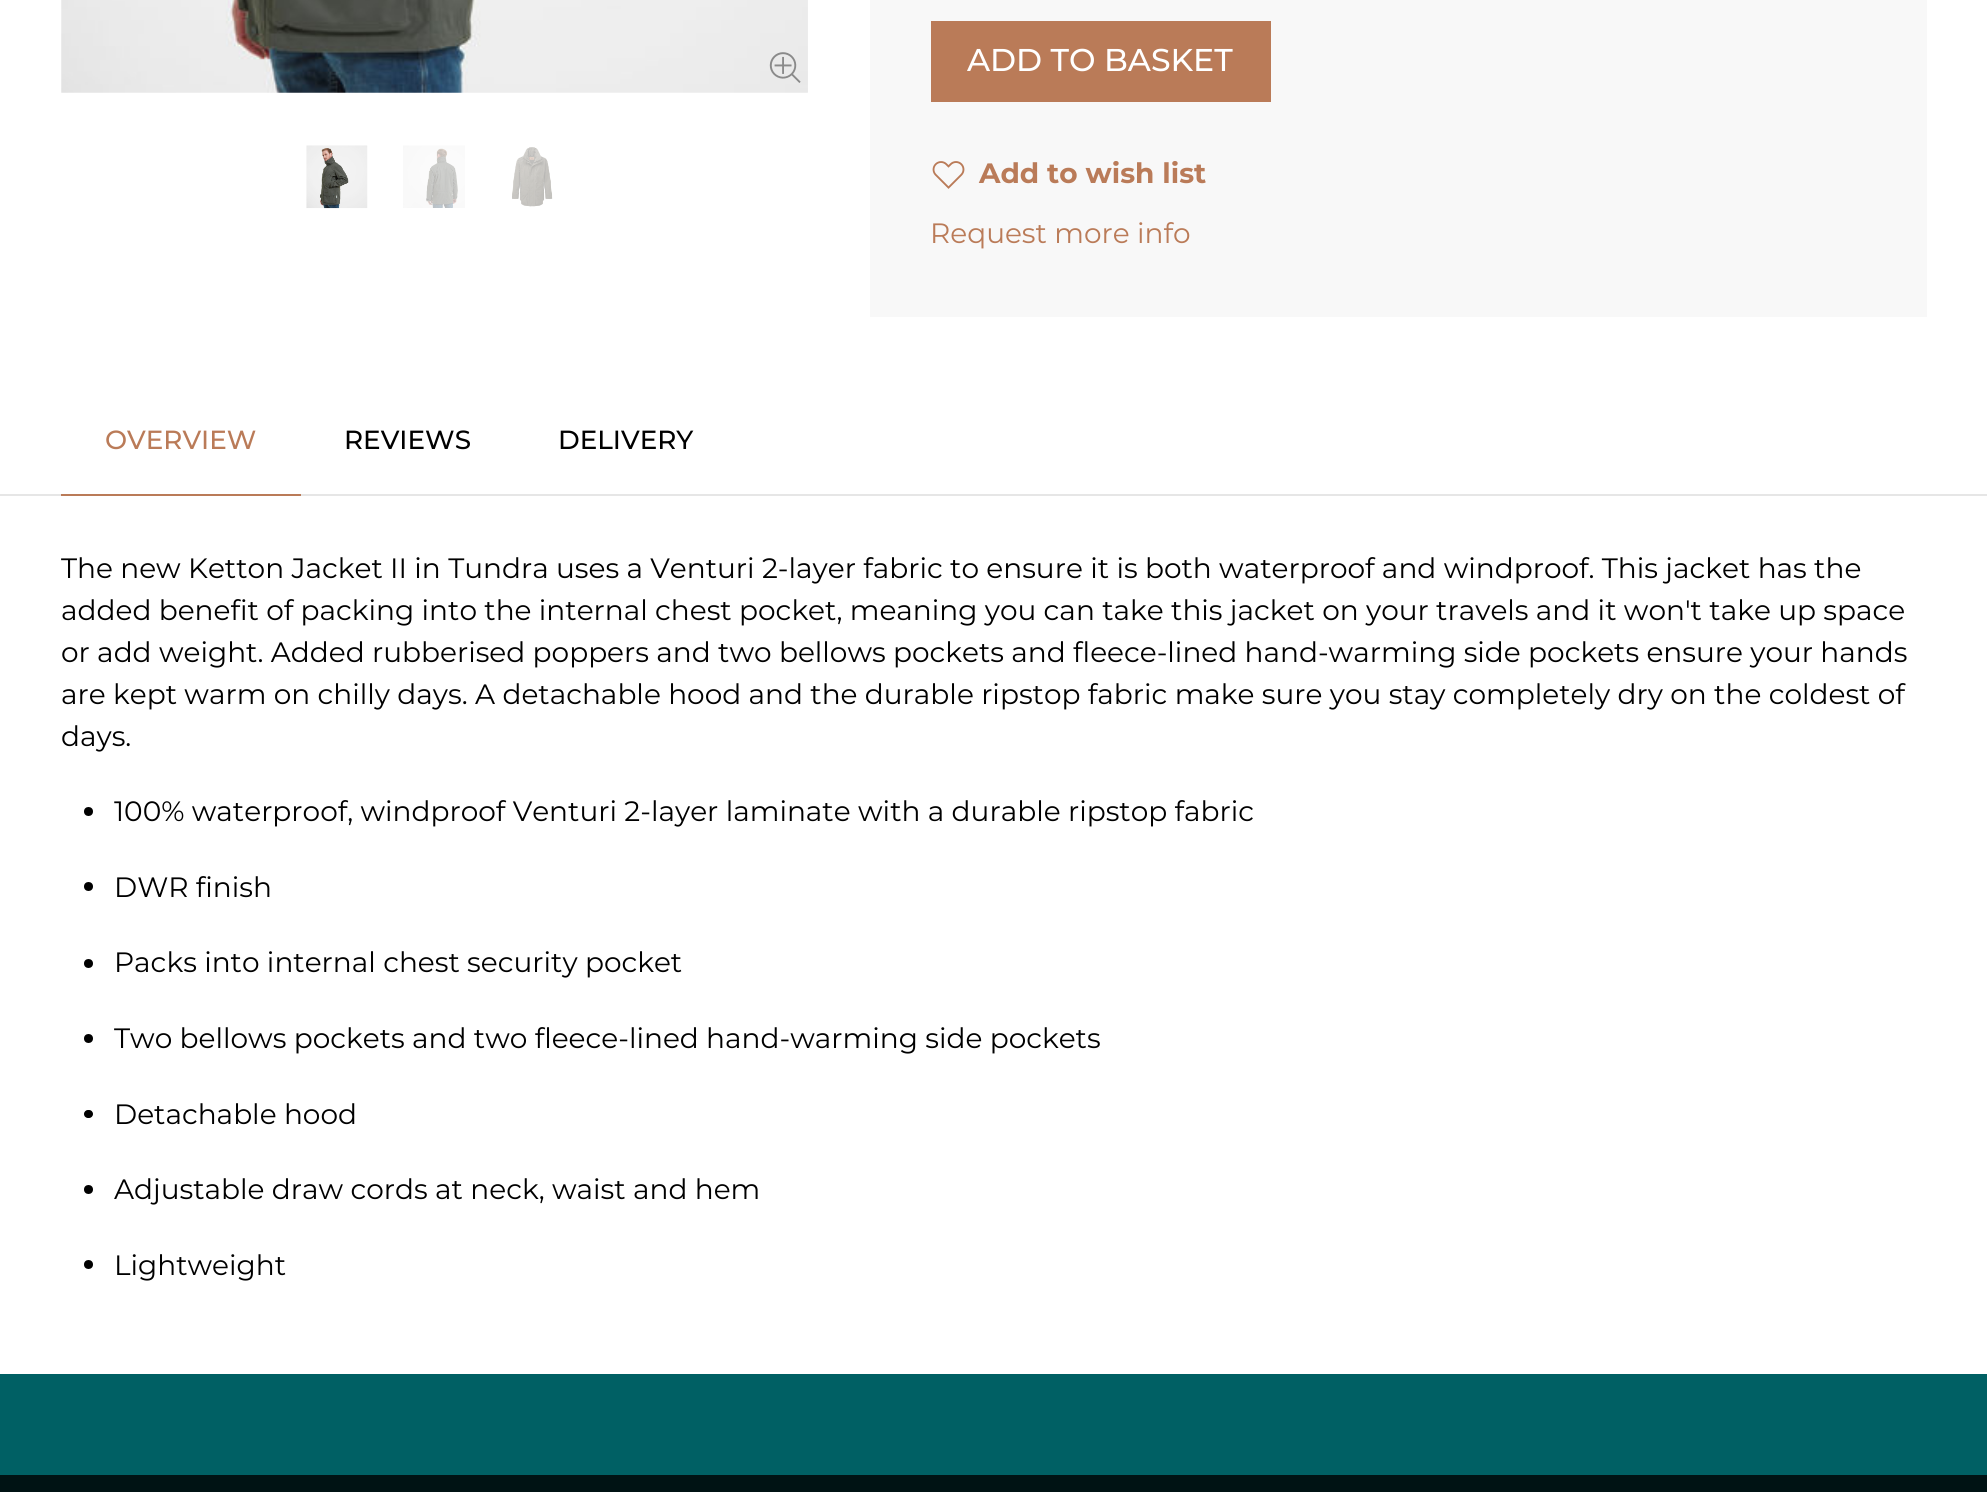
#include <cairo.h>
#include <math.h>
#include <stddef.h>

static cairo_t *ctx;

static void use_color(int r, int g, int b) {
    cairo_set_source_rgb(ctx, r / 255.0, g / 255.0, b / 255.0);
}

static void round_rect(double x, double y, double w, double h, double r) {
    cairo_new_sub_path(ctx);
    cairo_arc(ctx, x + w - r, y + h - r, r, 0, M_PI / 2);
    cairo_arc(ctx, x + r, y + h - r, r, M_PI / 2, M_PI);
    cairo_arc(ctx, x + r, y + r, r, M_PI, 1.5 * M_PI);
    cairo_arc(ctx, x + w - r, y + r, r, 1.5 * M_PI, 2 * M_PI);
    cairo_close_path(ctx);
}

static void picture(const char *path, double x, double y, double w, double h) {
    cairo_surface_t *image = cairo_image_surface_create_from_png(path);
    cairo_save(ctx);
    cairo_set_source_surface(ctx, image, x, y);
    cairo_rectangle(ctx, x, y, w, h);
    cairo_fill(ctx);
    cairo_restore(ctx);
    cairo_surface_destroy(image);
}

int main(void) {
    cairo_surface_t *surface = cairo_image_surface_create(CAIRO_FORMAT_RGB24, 1987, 1492);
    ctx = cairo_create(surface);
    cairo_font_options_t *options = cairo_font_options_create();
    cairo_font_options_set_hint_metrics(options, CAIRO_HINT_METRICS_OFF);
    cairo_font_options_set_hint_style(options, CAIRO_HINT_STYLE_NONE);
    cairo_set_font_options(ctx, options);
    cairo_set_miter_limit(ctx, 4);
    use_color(255, 255, 255);
    cairo_paint(ctx);
    picture("img1.png", 61, 0, 747, 93);
    picture("img2.png", 769, 52, 32, 31);
    picture("img3.png", 306, 145, 62, 64);
    picture("img4.png", 403, 145, 62, 63);
    picture("img5.png", 512, 147, 41, 60);
    use_color(248, 248, 248);
    cairo_rectangle(ctx, 870, 0, 1057, 317);
    cairo_fill(ctx);
    use_color(186, 123, 88);
    cairo_rectangle(ctx, 931, 21, 340, 81);
    cairo_fill(ctx);
    cairo_select_font_face(ctx, "Montserrat Medium", CAIRO_FONT_SLANT_NORMAL, CAIRO_FONT_WEIGHT_NORMAL);
    cairo_set_font_size(ctx, 31.5);
    use_color(255, 255, 255);
    cairo_move_to(ctx, 967, 71);
    cairo_show_text(ctx, "ADD TO BASKET");
    picture("img6.png", 932, 161, 33, 28);
    cairo_select_font_face(ctx, "Montserrat", CAIRO_FONT_SLANT_NORMAL, CAIRO_FONT_WEIGHT_BOLD);
    cairo_set_font_size(ctx, 28);
    use_color(186, 123, 88);
    cairo_move_to(ctx, 979, 183);
    cairo_show_text(ctx, "Add to wish list");
    cairo_select_font_face(ctx, "Montserrat", CAIRO_FONT_SLANT_NORMAL, CAIRO_FONT_WEIGHT_NORMAL);
    cairo_move_to(ctx, 930, 243);
    cairo_show_text(ctx, "Request more info");
    cairo_select_font_face(ctx, "Montserrat Medium", CAIRO_FONT_SLANT_NORMAL, CAIRO_FONT_WEIGHT_NORMAL);
    cairo_set_font_size(ctx, 26.25);
    cairo_move_to(ctx, 105, 449);
    cairo_show_text(ctx, "OVERVIEW");
    use_color(230, 230, 230);
    cairo_rectangle(ctx, 0, 494, 1987, 2);
    cairo_fill(ctx);
    use_color(186, 123, 88);
    cairo_rectangle(ctx, 61, 494, 240, 2);
    cairo_fill(ctx);
    use_color(0, 0, 0);
    cairo_move_to(ctx, 344, 449);
    cairo_show_text(ctx, "REVIEWS");
    cairo_move_to(ctx, 558, 449);
    cairo_show_text(ctx, "DELIVERY");
    cairo_select_font_face(ctx, "Montserrat", CAIRO_FONT_SLANT_NORMAL, CAIRO_FONT_WEIGHT_NORMAL);
    cairo_set_font_size(ctx, 28);
    cairo_move_to(ctx, 61, 578);
    cairo_show_text(ctx, "The new Ketton Jacket II in Tundra uses a Venturi 2-layer fabric to ensure it is both waterproof and windproof. This jacket has the");
    cairo_move_to(ctx, 61, 620);
    cairo_show_text(ctx, "added benefit of packing into the internal chest pocket, meaning you can take this jacket on your travels and it won't take up space");
    cairo_move_to(ctx, 61, 662);
    cairo_show_text(ctx, "or add weight. Added rubberised poppers and two bellows pockets and fleece-lined hand-warming side pockets ensure your hands");
    cairo_move_to(ctx, 61, 704);
    cairo_show_text(ctx, "are kept warm on chilly days. A detachable hood and the durable ripstop fabric make sure you stay completely dry on the coldest of");
    cairo_move_to(ctx, 61, 746);
    cairo_show_text(ctx, "days.");
    cairo_new_path(ctx);
    cairo_arc(ctx, 88.5, 811.5, 4.5, 0, 2 * M_PI);
    cairo_fill(ctx);
    cairo_move_to(ctx, 114, 821);
    cairo_show_text(ctx, "100% waterproof, windproof Venturi 2-layer laminate with a durable ripstop fabric");
    cairo_new_path(ctx);
    cairo_arc(ctx, 88.5, 886.5, 4.5, 0, 2 * M_PI);
    cairo_fill(ctx);
    cairo_move_to(ctx, 114, 897);
    cairo_show_text(ctx, "DWR finish");
    cairo_new_path(ctx);
    cairo_arc(ctx, 88.5, 963.5, 4.5, 0, 2 * M_PI);
    cairo_fill(ctx);
    cairo_move_to(ctx, 114, 972);
    cairo_show_text(ctx, "Packs into internal chest security pocket");
    cairo_new_path(ctx);
    cairo_arc(ctx, 88.5, 1038.5, 4.5, 0, 2 * M_PI);
    cairo_fill(ctx);
    cairo_move_to(ctx, 114, 1048);
    cairo_show_text(ctx, "Two bellows pockets and two fleece-lined hand-warming side pockets");
    round_rect(84, 1110, 9, 8, 4);
    cairo_fill(ctx);
    cairo_move_to(ctx, 114, 1124);
    cairo_show_text(ctx, "Detachable hood");
    cairo_new_path(ctx);
    cairo_arc(ctx, 88.5, 1189.5, 4.5, 0, 2 * M_PI);
    cairo_fill(ctx);
    cairo_move_to(ctx, 114, 1199);
    cairo_show_text(ctx, "Adjustable draw cords at neck, waist and hem");
    cairo_new_path(ctx);
    cairo_arc(ctx, 88.5, 1264.5, 4.5, 0, 2 * M_PI);
    cairo_fill(ctx);
    cairo_move_to(ctx, 114, 1275);
    cairo_show_text(ctx, "Lightweight");
    use_color(0, 96, 100);
    cairo_rectangle(ctx, 0, 1374, 1987, 118);
    cairo_fill(ctx);
    cairo_set_source_rgba(ctx, 0, 0, 0, 0.8);
    cairo_rectangle(ctx, 0, 1475, 1987, 17);
    cairo_fill(ctx);
    cairo_surface_write_to_png(surface, "result.png");
    cairo_font_options_destroy(options);
    cairo_destroy(ctx);
    cairo_surface_destroy(surface);
    return 0;
}
